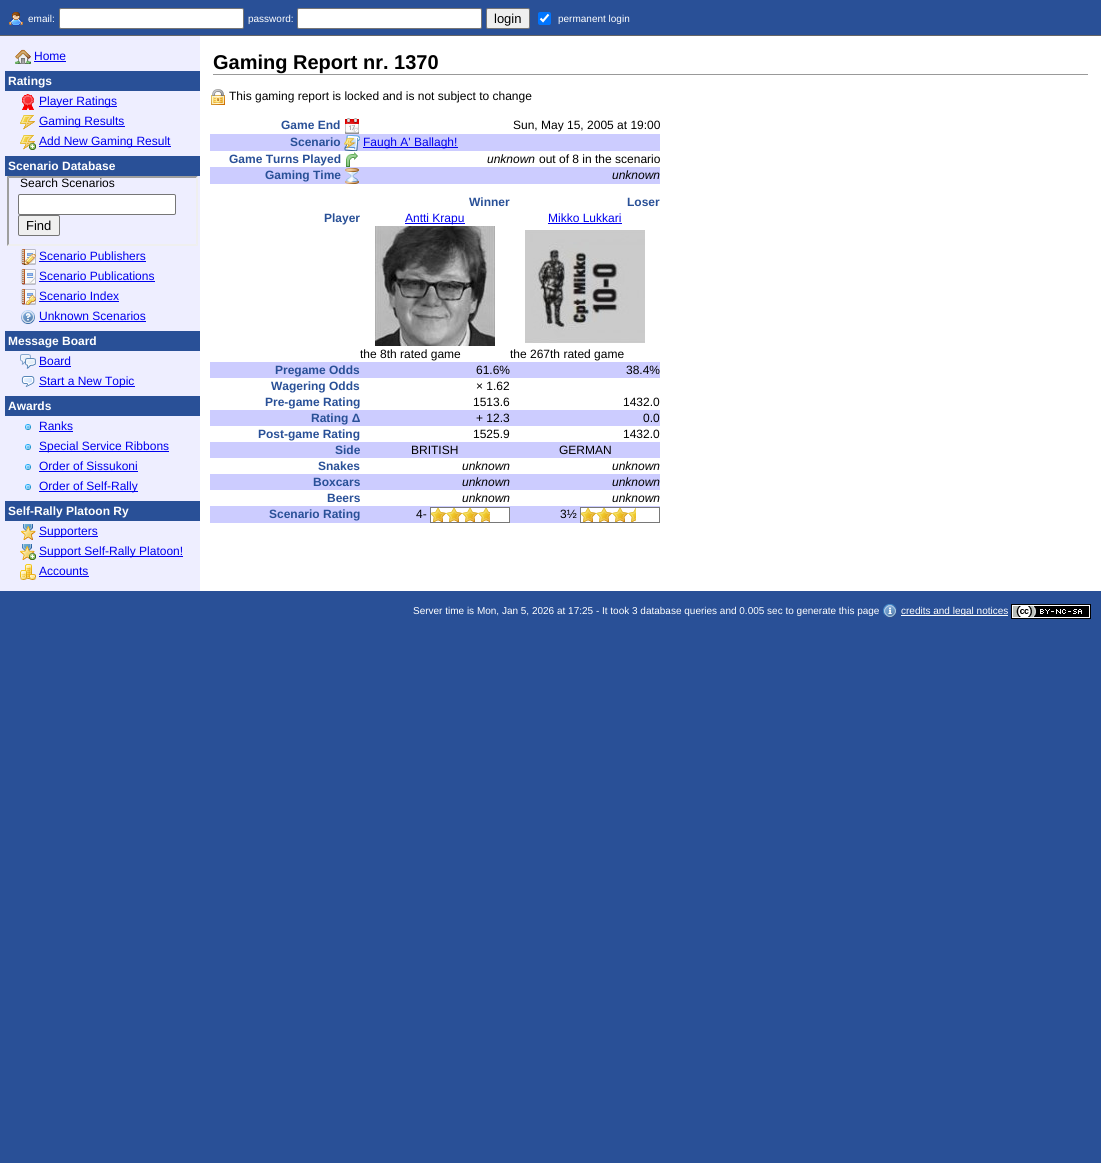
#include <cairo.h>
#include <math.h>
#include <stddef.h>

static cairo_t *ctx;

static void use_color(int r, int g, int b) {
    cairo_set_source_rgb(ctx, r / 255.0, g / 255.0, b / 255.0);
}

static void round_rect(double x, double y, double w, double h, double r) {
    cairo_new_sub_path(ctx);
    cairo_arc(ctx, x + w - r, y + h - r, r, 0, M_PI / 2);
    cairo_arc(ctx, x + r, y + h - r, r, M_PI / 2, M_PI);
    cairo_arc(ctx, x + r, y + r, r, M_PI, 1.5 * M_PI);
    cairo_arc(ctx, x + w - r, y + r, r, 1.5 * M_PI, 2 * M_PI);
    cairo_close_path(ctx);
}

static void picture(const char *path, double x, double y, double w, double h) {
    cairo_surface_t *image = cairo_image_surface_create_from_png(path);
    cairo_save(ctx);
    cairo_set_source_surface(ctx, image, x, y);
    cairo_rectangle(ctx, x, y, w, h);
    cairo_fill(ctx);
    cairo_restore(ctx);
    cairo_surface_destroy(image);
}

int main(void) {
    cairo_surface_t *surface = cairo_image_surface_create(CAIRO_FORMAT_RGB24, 1101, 1163);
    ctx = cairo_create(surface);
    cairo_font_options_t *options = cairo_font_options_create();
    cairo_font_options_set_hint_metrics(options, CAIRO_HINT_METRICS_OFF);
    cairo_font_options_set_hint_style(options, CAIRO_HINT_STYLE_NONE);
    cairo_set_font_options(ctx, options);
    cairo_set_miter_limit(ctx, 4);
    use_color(41, 80, 151);
    cairo_paint(ctx);
    use_color(255, 255, 255);
    cairo_rectangle(ctx, 200, 36, 901, 555);
    cairo_fill(ctx);
    picture("img1.png", 9, 12, 14, 14);
    cairo_select_font_face(ctx, "Liberation Sans", CAIRO_FONT_SLANT_NORMAL, CAIRO_FONT_WEIGHT_NORMAL);
    cairo_set_font_size(ctx, 10);
    cairo_move_to(ctx, 28, 22);
    cairo_show_text(ctx, "email:");
    round_rect(59.5, 8.5, 184, 20, 1.5);
    cairo_fill_preserve(ctx);
    use_color(118, 118, 118);
    cairo_set_line_width(ctx, 1);
    cairo_stroke(ctx);
    use_color(255, 255, 255);
    cairo_move_to(ctx, 248, 22);
    cairo_show_text(ctx, "password:");
    round_rect(297.5, 8.5, 184, 20, 1.5);
    cairo_fill_preserve(ctx);
    use_color(118, 118, 118);
    cairo_stroke(ctx);
    use_color(239, 239, 239);
    round_rect(486.5, 8.5, 43, 20, 1.5);
    cairo_fill_preserve(ctx);
    use_color(118, 118, 118);
    cairo_stroke(ctx);
    cairo_set_font_size(ctx, 13);
    use_color(0, 0, 0);
    cairo_move_to(ctx, 494, 23);
    cairo_show_text(ctx, "login");
    use_color(0, 117, 255);
    round_rect(538, 12, 13, 13, 2);
    cairo_fill(ctx);
    cairo_new_path(ctx);
    cairo_move_to(ctx, 540.5, 18.5);
    cairo_line_to(ctx, 543, 21);
    cairo_line_to(ctx, 548.5, 14.5);
    use_color(255, 255, 255);
    cairo_set_line_width(ctx, 2.1);
    cairo_stroke(ctx);
    cairo_set_font_size(ctx, 10);
    cairo_move_to(ctx, 558, 22);
    cairo_show_text(ctx, "permanent login");
    use_color(238, 238, 255);
    cairo_rectangle(ctx, 0, 36, 200, 555);
    cairo_fill(ctx);
    use_color(102, 102, 102);
    cairo_rectangle(ctx, 0, 35, 1101, 1);
    cairo_fill(ctx);
    picture("img2.png", 15, 49, 16, 15);
    cairo_set_font_size(ctx, 12);
    use_color(0, 0, 238);
    cairo_move_to(ctx, 34, 60);
    cairo_show_text(ctx, "Home");
    cairo_rectangle(ctx, 34, 61, 32, 1);
    cairo_fill(ctx);
    use_color(41, 80, 151);
    cairo_rectangle(ctx, 5, 71, 195, 20);
    cairo_fill(ctx);
    cairo_select_font_face(ctx, "Liberation Sans", CAIRO_FONT_SLANT_NORMAL, CAIRO_FONT_WEIGHT_BOLD);
    use_color(255, 255, 255);
    cairo_move_to(ctx, 8, 85);
    cairo_show_text(ctx, "Ratings");
    picture("img3.png", 22, 94, 12, 16);
    use_color(0, 0, 238);
    cairo_rectangle(ctx, 39, 106, 78, 1);
    cairo_fill(ctx);
    cairo_select_font_face(ctx, "Liberation Sans", CAIRO_FONT_SLANT_NORMAL, CAIRO_FONT_WEIGHT_NORMAL);
    cairo_move_to(ctx, 39, 105);
    cairo_show_text(ctx, "Player Ratings");
    picture("img4.png", 20, 115, 15, 15);
    cairo_rectangle(ctx, 39, 126, 86, 1);
    cairo_fill(ctx);
    cairo_move_to(ctx, 39, 125);
    cairo_show_text(ctx, "Gaming Results");
    picture("img5.png", 20, 135, 16, 15);
    cairo_rectangle(ctx, 39, 146, 132, 1);
    cairo_fill(ctx);
    cairo_move_to(ctx, 39, 145);
    cairo_show_text(ctx, "Add New Gaming Result");
    use_color(41, 80, 151);
    cairo_rectangle(ctx, 5, 156, 195, 20);
    cairo_fill(ctx);
    cairo_select_font_face(ctx, "Liberation Sans", CAIRO_FONT_SLANT_NORMAL, CAIRO_FONT_WEIGHT_BOLD);
    use_color(255, 255, 255);
    cairo_move_to(ctx, 8, 170);
    cairo_show_text(ctx, "Scenario Database");
    use_color(159, 159, 159);
    cairo_new_path(ctx);
    cairo_move_to(ctx, 7, 176);
    cairo_line_to(ctx, 198, 176);
    cairo_line_to(ctx, 196, 178);
    cairo_line_to(ctx, 9, 178);
    cairo_close_path(ctx);
    cairo_fill(ctx);
    use_color(239, 239, 239);
    cairo_new_path(ctx);
    cairo_move_to(ctx, 198, 176);
    cairo_line_to(ctx, 198, 246);
    cairo_line_to(ctx, 196, 244);
    cairo_line_to(ctx, 196, 178);
    cairo_close_path(ctx);
    cairo_fill(ctx);
    cairo_new_path(ctx);
    cairo_move_to(ctx, 198, 246);
    cairo_line_to(ctx, 7, 246);
    cairo_line_to(ctx, 9, 244);
    cairo_line_to(ctx, 196, 244);
    cairo_close_path(ctx);
    cairo_fill(ctx);
    use_color(159, 159, 159);
    cairo_new_path(ctx);
    cairo_move_to(ctx, 7, 246);
    cairo_line_to(ctx, 7, 176);
    cairo_line_to(ctx, 9, 178);
    cairo_line_to(ctx, 9, 244);
    cairo_close_path(ctx);
    cairo_fill(ctx);
    cairo_select_font_face(ctx, "Liberation Sans", CAIRO_FONT_SLANT_NORMAL, CAIRO_FONT_WEIGHT_NORMAL);
    use_color(0, 0, 0);
    cairo_move_to(ctx, 20, 187);
    cairo_show_text(ctx, "Search Scenarios");
    use_color(255, 255, 255);
    round_rect(18.5, 194.5, 157, 20, 1.5);
    cairo_fill_preserve(ctx);
    use_color(118, 118, 118);
    cairo_set_line_width(ctx, 1);
    cairo_stroke(ctx);
    use_color(239, 239, 239);
    round_rect(18.5, 215.5, 41, 20, 1.5);
    cairo_fill_preserve(ctx);
    use_color(118, 118, 118);
    cairo_stroke(ctx);
    cairo_set_font_size(ctx, 13);
    use_color(0, 0, 0);
    cairo_move_to(ctx, 26, 230);
    cairo_show_text(ctx, "Find");
    picture("img6.png", 20, 249, 16, 16);
    cairo_set_font_size(ctx, 12);
    use_color(0, 0, 238);
    cairo_move_to(ctx, 39, 260);
    cairo_show_text(ctx, "Scenario Publishers");
    cairo_rectangle(ctx, 39, 261, 107, 1);
    cairo_fill(ctx);
    picture("img7.png", 20, 269, 16, 16);
    cairo_move_to(ctx, 39, 280);
    cairo_show_text(ctx, "Scenario Publications");
    cairo_rectangle(ctx, 39, 281, 116, 1);
    cairo_fill(ctx);
    picture("img8.png", 20, 289, 16, 16);
    cairo_move_to(ctx, 39, 300);
    cairo_show_text(ctx, "Scenario Index");
    cairo_rectangle(ctx, 39, 301, 80, 1);
    cairo_fill(ctx);
    picture("img9.png", 21, 310, 14, 14);
    cairo_move_to(ctx, 39, 320);
    cairo_show_text(ctx, "Unknown Scenarios");
    cairo_rectangle(ctx, 39, 321, 107, 1);
    cairo_fill(ctx);
    use_color(41, 80, 151);
    cairo_rectangle(ctx, 5, 331, 195, 20);
    cairo_fill(ctx);
    cairo_select_font_face(ctx, "Liberation Sans", CAIRO_FONT_SLANT_NORMAL, CAIRO_FONT_WEIGHT_BOLD);
    use_color(255, 255, 255);
    cairo_move_to(ctx, 8, 345);
    cairo_show_text(ctx, "Message Board");
    picture("img10.png", 20, 354, 16, 15);
    cairo_select_font_face(ctx, "Liberation Sans", CAIRO_FONT_SLANT_NORMAL, CAIRO_FONT_WEIGHT_NORMAL);
    use_color(0, 0, 238);
    cairo_move_to(ctx, 39, 365);
    cairo_show_text(ctx, "Board");
    cairo_rectangle(ctx, 39, 366, 32, 1);
    cairo_fill(ctx);
    picture("img11.png", 21, 376, 14, 11);
    cairo_rectangle(ctx, 39, 386, 96, 1);
    cairo_fill(ctx);
    cairo_move_to(ctx, 39, 385);
    cairo_show_text(ctx, "Start a New Topic");
    use_color(41, 80, 151);
    cairo_rectangle(ctx, 5, 396, 195, 20);
    cairo_fill(ctx);
    cairo_select_font_face(ctx, "Liberation Sans", CAIRO_FONT_SLANT_NORMAL, CAIRO_FONT_WEIGHT_BOLD);
    use_color(255, 255, 255);
    cairo_move_to(ctx, 8, 410);
    cairo_show_text(ctx, "Awards");
    picture("img12.png", 25, 424, 6, 6);
    cairo_select_font_face(ctx, "Liberation Sans", CAIRO_FONT_SLANT_NORMAL, CAIRO_FONT_WEIGHT_NORMAL);
    use_color(0, 0, 238);
    cairo_move_to(ctx, 39, 430);
    cairo_show_text(ctx, "Ranks");
    cairo_rectangle(ctx, 39, 431, 34, 1);
    cairo_fill(ctx);
    picture("img12.png", 25, 444, 6, 6);
    cairo_rectangle(ctx, 39, 451, 130, 1);
    cairo_fill(ctx);
    cairo_move_to(ctx, 39, 450);
    cairo_show_text(ctx, "Special Service Ribbons");
    picture("img12.png", 25, 464, 6, 6);
    cairo_move_to(ctx, 39, 470);
    cairo_show_text(ctx, "Order of Sissukoni");
    cairo_rectangle(ctx, 39, 471, 99, 1);
    cairo_fill(ctx);
    picture("img12.png", 25, 484, 6, 6);
    cairo_rectangle(ctx, 39, 491, 99, 1);
    cairo_fill(ctx);
    cairo_move_to(ctx, 39, 490);
    cairo_show_text(ctx, "Order of Self-Rally");
    use_color(41, 80, 151);
    cairo_rectangle(ctx, 5, 501, 195, 20);
    cairo_fill(ctx);
    cairo_select_font_face(ctx, "Liberation Sans", CAIRO_FONT_SLANT_NORMAL, CAIRO_FONT_WEIGHT_BOLD);
    use_color(255, 255, 255);
    cairo_move_to(ctx, 8, 515);
    cairo_show_text(ctx, "Self-Rally Platoon Ry");
    picture("img13.png", 21, 524, 15, 16);
    use_color(0, 0, 238);
    cairo_rectangle(ctx, 39, 536, 59, 1);
    cairo_fill(ctx);
    cairo_select_font_face(ctx, "Liberation Sans", CAIRO_FONT_SLANT_NORMAL, CAIRO_FONT_WEIGHT_NORMAL);
    cairo_move_to(ctx, 39, 535);
    cairo_show_text(ctx, "Supporters");
    picture("img14.png", 20, 544, 16, 16);
    cairo_rectangle(ctx, 39, 556, 144, 1);
    cairo_fill(ctx);
    cairo_move_to(ctx, 39, 555);
    cairo_show_text(ctx, "Support Self-Rally Platoon!");
    picture("img15.png", 20, 564, 16, 16);
    cairo_move_to(ctx, 39, 575);
    cairo_show_text(ctx, "Accounts");
    cairo_rectangle(ctx, 39, 576, 50, 1);
    cairo_fill(ctx);
    use_color(153, 153, 153);
    cairo_rectangle(ctx, 213, 74, 875, 1);
    cairo_fill(ctx);
    cairo_select_font_face(ctx, "Liberation Sans", CAIRO_FONT_SLANT_NORMAL, CAIRO_FONT_WEIGHT_BOLD);
    cairo_set_font_size(ctx, 20);
    use_color(0, 0, 0);
    cairo_move_to(ctx, 213, 69);
    cairo_show_text(ctx, "Gaming Report nr. 1370");
    picture("img16.png", 211, 89, 14, 16);
    cairo_select_font_face(ctx, "Liberation Sans", CAIRO_FONT_SLANT_NORMAL, CAIRO_FONT_WEIGHT_NORMAL);
    cairo_set_font_size(ctx, 12);
    cairo_move_to(ctx, 229, 100);
    cairo_show_text(ctx, "This gaming report is locked and is not subject to change");
    cairo_select_font_face(ctx, "Liberation Sans", CAIRO_FONT_SLANT_NORMAL, CAIRO_FONT_WEIGHT_BOLD);
    use_color(41, 80, 151);
    cairo_move_to(ctx, 281, 129);
    cairo_show_text(ctx, "Game End");
    picture("img17.png", 345, 118, 14, 16);
    cairo_select_font_face(ctx, "Liberation Sans", CAIRO_FONT_SLANT_NORMAL, CAIRO_FONT_WEIGHT_NORMAL);
    use_color(0, 0, 0);
    cairo_move_to(ctx, 513, 129);
    cairo_show_text(ctx, "Sun, May 15, 2005 at 19:00");
    use_color(204, 204, 255);
    cairo_rectangle(ctx, 210, 134, 450, 17);
    cairo_fill(ctx);
    cairo_select_font_face(ctx, "Liberation Sans", CAIRO_FONT_SLANT_NORMAL, CAIRO_FONT_WEIGHT_BOLD);
    use_color(41, 80, 151);
    cairo_move_to(ctx, 290, 146);
    cairo_show_text(ctx, "Scenario");
    picture("img18.png", 344, 135, 16, 16);
    use_color(0, 0, 238);
    cairo_rectangle(ctx, 363, 147, 95, 1);
    cairo_fill(ctx);
    cairo_select_font_face(ctx, "Liberation Sans", CAIRO_FONT_SLANT_NORMAL, CAIRO_FONT_WEIGHT_NORMAL);
    cairo_move_to(ctx, 363, 146);
    cairo_show_text(ctx, "Faugh A' Ballagh!");
    cairo_select_font_face(ctx, "Liberation Sans", CAIRO_FONT_SLANT_NORMAL, CAIRO_FONT_WEIGHT_BOLD);
    use_color(41, 80, 151);
    cairo_move_to(ctx, 229, 163);
    cairo_show_text(ctx, "Game Turns Played");
    picture("img19.png", 346, 152, 12, 15);
    cairo_select_font_face(ctx, "Liberation Sans", CAIRO_FONT_SLANT_ITALIC, CAIRO_FONT_WEIGHT_NORMAL);
    use_color(0, 0, 0);
    cairo_move_to(ctx, 487, 163);
    cairo_show_text(ctx, "unknown");
    cairo_select_font_face(ctx, "Liberation Sans", CAIRO_FONT_SLANT_NORMAL, CAIRO_FONT_WEIGHT_NORMAL);
    cairo_move_to(ctx, 539, 163);
    cairo_show_text(ctx, "out of 8 in the scenario");
    use_color(204, 204, 255);
    cairo_rectangle(ctx, 210, 167, 450, 17);
    cairo_fill(ctx);
    cairo_select_font_face(ctx, "Liberation Sans", CAIRO_FONT_SLANT_NORMAL, CAIRO_FONT_WEIGHT_BOLD);
    use_color(41, 80, 151);
    cairo_move_to(ctx, 265, 179);
    cairo_show_text(ctx, "Gaming Time");
    picture("img20.png", 345, 168, 14, 16);
    cairo_select_font_face(ctx, "Liberation Sans", CAIRO_FONT_SLANT_ITALIC, CAIRO_FONT_WEIGHT_NORMAL);
    use_color(0, 0, 0);
    cairo_move_to(ctx, 612, 179);
    cairo_show_text(ctx, "unknown");
    cairo_select_font_face(ctx, "Liberation Sans", CAIRO_FONT_SLANT_NORMAL, CAIRO_FONT_WEIGHT_BOLD);
    use_color(41, 80, 151);
    cairo_move_to(ctx, 469, 206);
    cairo_show_text(ctx, "Winner");
    cairo_move_to(ctx, 627, 206);
    cairo_show_text(ctx, "Loser");
    cairo_move_to(ctx, 324, 222);
    cairo_show_text(ctx, "Player");
    use_color(0, 0, 238);
    cairo_rectangle(ctx, 405, 223, 60, 1);
    cairo_fill(ctx);
    cairo_select_font_face(ctx, "Liberation Sans", CAIRO_FONT_SLANT_NORMAL, CAIRO_FONT_WEIGHT_NORMAL);
    cairo_move_to(ctx, 405, 222);
    cairo_show_text(ctx, "Antti Krapu");
    picture("img21.png", 375, 226, 120, 120);
    use_color(0, 0, 0);
    cairo_move_to(ctx, 360, 358);
    cairo_show_text(ctx, "the 8th rated game");
    use_color(0, 0, 238);
    cairo_move_to(ctx, 548, 222);
    cairo_show_text(ctx, "Mikko Lukkari");
    cairo_rectangle(ctx, 548, 223, 74, 1);
    cairo_fill(ctx);
    picture("img22.png", 525, 230, 120, 113);
    use_color(0, 0, 0);
    cairo_move_to(ctx, 510, 358);
    cairo_show_text(ctx, "the 267th rated game");
    use_color(204, 204, 255);
    cairo_rectangle(ctx, 210, 362, 450, 16);
    cairo_fill(ctx);
    cairo_select_font_face(ctx, "Liberation Sans", CAIRO_FONT_SLANT_NORMAL, CAIRO_FONT_WEIGHT_BOLD);
    use_color(41, 80, 151);
    cairo_move_to(ctx, 275, 374);
    cairo_show_text(ctx, "Pregame Odds");
    cairo_select_font_face(ctx, "Liberation Sans", CAIRO_FONT_SLANT_NORMAL, CAIRO_FONT_WEIGHT_NORMAL);
    use_color(0, 0, 0);
    cairo_move_to(ctx, 476, 374);
    cairo_show_text(ctx, "61.6%");
    cairo_move_to(ctx, 626, 374);
    cairo_show_text(ctx, "38.4%");
    cairo_select_font_face(ctx, "Liberation Sans", CAIRO_FONT_SLANT_NORMAL, CAIRO_FONT_WEIGHT_BOLD);
    use_color(41, 80, 151);
    cairo_move_to(ctx, 271, 390);
    cairo_show_text(ctx, "Wagering Odds");
    cairo_select_font_face(ctx, "Liberation Sans", CAIRO_FONT_SLANT_NORMAL, CAIRO_FONT_WEIGHT_NORMAL);
    use_color(0, 0, 0);
    cairo_move_to(ctx, 476, 390);
    cairo_show_text(ctx, "× 1.62");
    cairo_select_font_face(ctx, "Liberation Sans", CAIRO_FONT_SLANT_NORMAL, CAIRO_FONT_WEIGHT_BOLD);
    use_color(41, 80, 151);
    cairo_move_to(ctx, 265, 406);
    cairo_show_text(ctx, "Pre-game Rating");
    cairo_select_font_face(ctx, "Liberation Sans", CAIRO_FONT_SLANT_NORMAL, CAIRO_FONT_WEIGHT_NORMAL);
    use_color(0, 0, 0);
    cairo_move_to(ctx, 473, 406);
    cairo_show_text(ctx, "1513.6");
    cairo_move_to(ctx, 623, 406);
    cairo_show_text(ctx, "1432.0");
    use_color(204, 204, 255);
    cairo_rectangle(ctx, 210, 410, 450, 16);
    cairo_fill(ctx);
    cairo_select_font_face(ctx, "Liberation Sans", CAIRO_FONT_SLANT_NORMAL, CAIRO_FONT_WEIGHT_BOLD);
    use_color(41, 80, 151);
    cairo_move_to(ctx, 311, 422);
    cairo_show_text(ctx, "Rating Δ");
    cairo_select_font_face(ctx, "Liberation Sans", CAIRO_FONT_SLANT_NORMAL, CAIRO_FONT_WEIGHT_NORMAL);
    use_color(0, 0, 0);
    cairo_move_to(ctx, 476, 422);
    cairo_show_text(ctx, "+ 12.3");
    cairo_move_to(ctx, 643, 422);
    cairo_show_text(ctx, "0.0");
    cairo_select_font_face(ctx, "Liberation Sans", CAIRO_FONT_SLANT_NORMAL, CAIRO_FONT_WEIGHT_BOLD);
    use_color(41, 80, 151);
    cairo_move_to(ctx, 258, 438);
    cairo_show_text(ctx, "Post-game Rating");
    cairo_select_font_face(ctx, "Liberation Sans", CAIRO_FONT_SLANT_NORMAL, CAIRO_FONT_WEIGHT_NORMAL);
    use_color(0, 0, 0);
    cairo_move_to(ctx, 473, 438);
    cairo_show_text(ctx, "1525.9");
    cairo_move_to(ctx, 623, 438);
    cairo_show_text(ctx, "1432.0");
    use_color(204, 204, 255);
    cairo_rectangle(ctx, 210, 442, 450, 16);
    cairo_fill(ctx);
    cairo_select_font_face(ctx, "Liberation Sans", CAIRO_FONT_SLANT_NORMAL, CAIRO_FONT_WEIGHT_BOLD);
    use_color(41, 80, 151);
    cairo_move_to(ctx, 335, 454);
    cairo_show_text(ctx, "Side");
    cairo_select_font_face(ctx, "Liberation Sans", CAIRO_FONT_SLANT_NORMAL, CAIRO_FONT_WEIGHT_NORMAL);
    use_color(0, 0, 0);
    cairo_move_to(ctx, 411, 454);
    cairo_show_text(ctx, "BRITISH");
    cairo_move_to(ctx, 559, 454);
    cairo_show_text(ctx, "GERMAN");
    cairo_select_font_face(ctx, "Liberation Sans", CAIRO_FONT_SLANT_NORMAL, CAIRO_FONT_WEIGHT_BOLD);
    use_color(41, 80, 151);
    cairo_move_to(ctx, 318, 470);
    cairo_show_text(ctx, "Snakes");
    cairo_select_font_face(ctx, "Liberation Sans", CAIRO_FONT_SLANT_ITALIC, CAIRO_FONT_WEIGHT_NORMAL);
    use_color(0, 0, 0);
    cairo_move_to(ctx, 462, 470);
    cairo_show_text(ctx, "unknown");
    cairo_move_to(ctx, 612, 470);
    cairo_show_text(ctx, "unknown");
    use_color(204, 204, 255);
    cairo_rectangle(ctx, 210, 474, 450, 16);
    cairo_fill(ctx);
    cairo_select_font_face(ctx, "Liberation Sans", CAIRO_FONT_SLANT_NORMAL, CAIRO_FONT_WEIGHT_BOLD);
    use_color(41, 80, 151);
    cairo_move_to(ctx, 313, 486);
    cairo_show_text(ctx, "Boxcars");
    cairo_select_font_face(ctx, "Liberation Sans", CAIRO_FONT_SLANT_ITALIC, CAIRO_FONT_WEIGHT_NORMAL);
    use_color(0, 0, 0);
    cairo_move_to(ctx, 462, 486);
    cairo_show_text(ctx, "unknown");
    cairo_move_to(ctx, 612, 486);
    cairo_show_text(ctx, "unknown");
    cairo_select_font_face(ctx, "Liberation Sans", CAIRO_FONT_SLANT_NORMAL, CAIRO_FONT_WEIGHT_BOLD);
    use_color(41, 80, 151);
    cairo_move_to(ctx, 327, 502);
    cairo_show_text(ctx, "Beers");
    cairo_select_font_face(ctx, "Liberation Sans", CAIRO_FONT_SLANT_ITALIC, CAIRO_FONT_WEIGHT_NORMAL);
    use_color(0, 0, 0);
    cairo_move_to(ctx, 462, 502);
    cairo_show_text(ctx, "unknown");
    cairo_move_to(ctx, 612, 502);
    cairo_show_text(ctx, "unknown");
    use_color(204, 204, 255);
    cairo_rectangle(ctx, 210, 506, 450, 17);
    cairo_fill(ctx);
    cairo_select_font_face(ctx, "Liberation Sans", CAIRO_FONT_SLANT_NORMAL, CAIRO_FONT_WEIGHT_BOLD);
    use_color(41, 80, 151);
    cairo_move_to(ctx, 269, 518);
    cairo_show_text(ctx, "Scenario Rating");
    cairo_select_font_face(ctx, "Liberation Sans", CAIRO_FONT_SLANT_NORMAL, CAIRO_FONT_WEIGHT_NORMAL);
    use_color(0, 0, 0);
    cairo_move_to(ctx, 416, 518);
    cairo_show_text(ctx, "4-");
    picture("img23.png", 430, 507, 80, 16);
    cairo_move_to(ctx, 560, 518);
    cairo_show_text(ctx, "3½");
    picture("img24.png", 580, 507, 80, 16);
    cairo_set_font_size(ctx, 10);
    use_color(255, 255, 255);
    cairo_move_to(ctx, 413, 614);
    cairo_show_text(ctx, "Server time is Mon, Jan 5, 2026 at 17:25 - It took 3 database queries and 0.005 sec to generate this page");
    picture("img25.png", 883, 604, 14, 14);
    cairo_rectangle(ctx, 901, 615, 107, 1);
    cairo_fill(ctx);
    cairo_move_to(ctx, 901, 614);
    cairo_show_text(ctx, "credits and legal notices");
    picture("img26.png", 1011, 604, 80, 15);
    cairo_surface_write_to_png(surface, "result.png");
    cairo_font_options_destroy(options);
    cairo_destroy(ctx);
    cairo_surface_destroy(surface);
    return 0;
}
